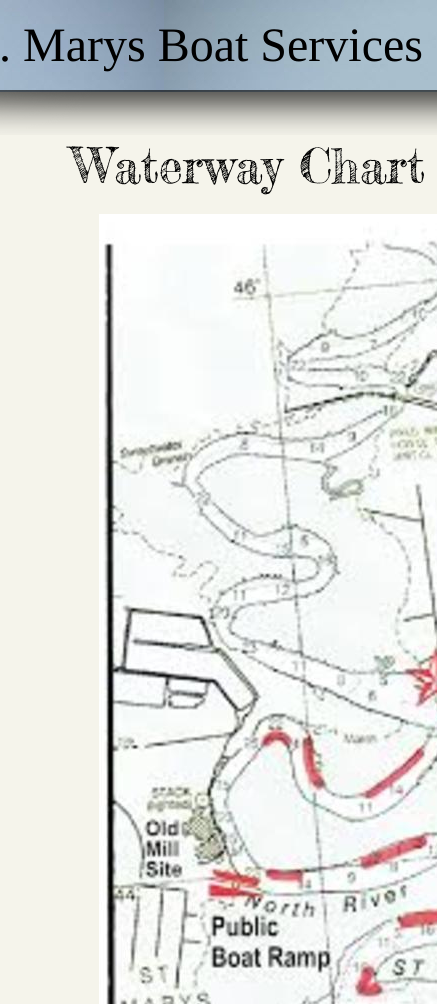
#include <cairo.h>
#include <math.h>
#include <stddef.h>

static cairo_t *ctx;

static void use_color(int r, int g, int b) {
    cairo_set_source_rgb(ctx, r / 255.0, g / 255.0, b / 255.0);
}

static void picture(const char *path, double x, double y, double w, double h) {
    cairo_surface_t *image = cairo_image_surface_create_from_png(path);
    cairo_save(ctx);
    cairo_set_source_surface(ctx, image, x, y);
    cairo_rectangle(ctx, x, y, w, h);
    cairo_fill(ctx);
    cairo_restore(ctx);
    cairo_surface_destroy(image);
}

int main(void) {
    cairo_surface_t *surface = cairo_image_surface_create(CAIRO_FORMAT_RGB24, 437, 1004);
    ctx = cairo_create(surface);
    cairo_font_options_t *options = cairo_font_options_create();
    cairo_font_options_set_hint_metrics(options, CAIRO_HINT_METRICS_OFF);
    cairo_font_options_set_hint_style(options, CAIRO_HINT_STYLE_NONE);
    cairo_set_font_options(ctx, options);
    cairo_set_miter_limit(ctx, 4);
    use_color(255, 255, 255);
    cairo_paint(ctx);
    picture("img1.png", 0, 0, 437, 92);
    use_color(245, 244, 235);
    cairo_rectangle(ctx, 0, 92, 437, 912);
    cairo_fill(ctx);
    cairo_select_font_face(ctx, "Liberation Serif", CAIRO_FONT_SLANT_NORMAL, CAIRO_FONT_WEIGHT_NORMAL);
    cairo_set_font_size(ctx, 48);
    use_color(0, 0, 0);
    cairo_move_to(ctx, -1, 61);
    cairo_show_text(ctx, ". Marys Boat Services");
    picture("img2.png", 0, 90, 437, 45);
    cairo_select_font_face(ctx, "Fredericka the Great", CAIRO_FONT_SLANT_NORMAL, CAIRO_FONT_WEIGHT_NORMAL);
    cairo_move_to(ctx, 72, 183);
    cairo_show_text(ctx, "Waterway Chart");
    picture("img3.png", 99, 214, 338, 790);
    cairo_surface_write_to_png(surface, "result.png");
    cairo_font_options_destroy(options);
    cairo_destroy(ctx);
    cairo_surface_destroy(surface);
    return 0;
}
